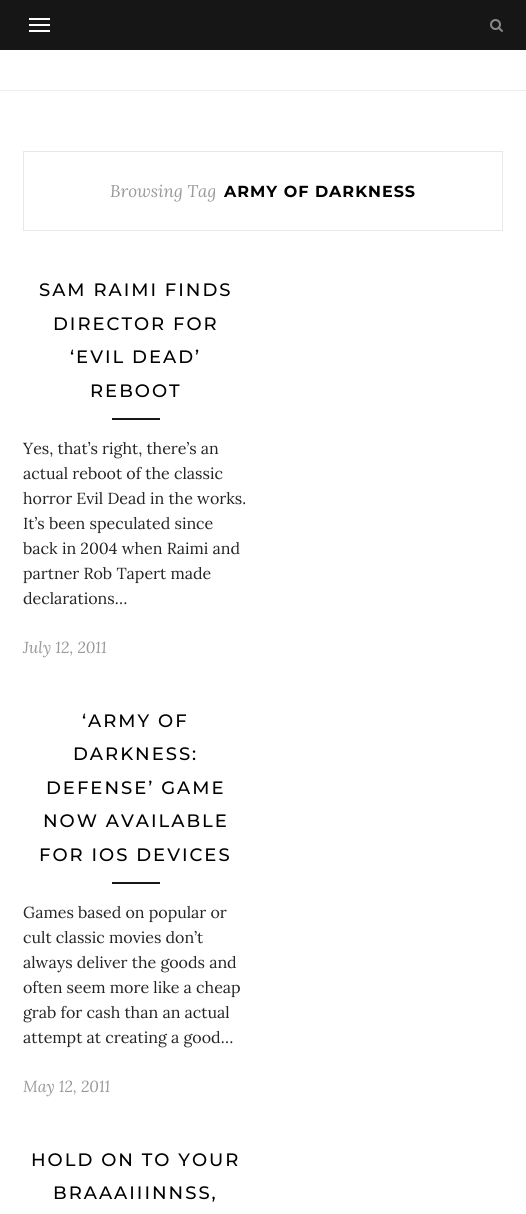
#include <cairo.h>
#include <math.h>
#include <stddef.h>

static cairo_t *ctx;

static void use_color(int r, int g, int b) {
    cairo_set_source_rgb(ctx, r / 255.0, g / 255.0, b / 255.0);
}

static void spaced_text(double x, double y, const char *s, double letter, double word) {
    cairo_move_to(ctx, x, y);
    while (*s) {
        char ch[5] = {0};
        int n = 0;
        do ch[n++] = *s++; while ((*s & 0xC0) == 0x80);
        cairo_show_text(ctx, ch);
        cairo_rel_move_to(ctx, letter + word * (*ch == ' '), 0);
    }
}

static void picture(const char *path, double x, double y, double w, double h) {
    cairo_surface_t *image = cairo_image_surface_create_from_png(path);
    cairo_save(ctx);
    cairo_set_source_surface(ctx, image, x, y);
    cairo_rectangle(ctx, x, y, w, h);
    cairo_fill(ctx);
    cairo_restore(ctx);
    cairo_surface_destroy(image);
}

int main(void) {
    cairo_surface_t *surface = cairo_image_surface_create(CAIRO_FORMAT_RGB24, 526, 1214);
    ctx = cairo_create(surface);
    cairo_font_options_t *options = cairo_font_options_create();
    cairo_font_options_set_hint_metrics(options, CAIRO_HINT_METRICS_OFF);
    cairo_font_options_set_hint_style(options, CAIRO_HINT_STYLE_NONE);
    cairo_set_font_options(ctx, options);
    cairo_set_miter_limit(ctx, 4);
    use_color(255, 255, 255);
    cairo_paint(ctx);
    use_color(22, 22, 22);
    cairo_rectangle(ctx, 0, 0, 526, 50);
    cairo_fill(ctx);
    use_color(255, 255, 255);
    cairo_rectangle(ctx, 29, 18, 21, 2);
    cairo_fill(ctx);
    cairo_rectangle(ctx, 29, 24, 21, 2);
    cairo_fill(ctx);
    cairo_rectangle(ctx, 29, 30, 21, 2);
    cairo_fill(ctx);
    picture("img1.png", 490, 19, 13, 13);
    use_color(238, 238, 238);
    cairo_rectangle(ctx, 0, 90, 526, 1);
    cairo_fill(ctx);
    cairo_rectangle(ctx, 23.5, 151.5, 479, 79);
    use_color(232, 232, 232);
    cairo_set_line_width(ctx, 1);
    cairo_stroke(ctx);
    cairo_select_font_face(ctx, "Lora", CAIRO_FONT_SLANT_ITALIC, CAIRO_FONT_WEIGHT_NORMAL);
    cairo_set_font_size(ctx, 17);
    use_color(153, 153, 153);
    cairo_move_to(ctx, 110, 197);
    cairo_show_text(ctx, "Browsing Tag");
    cairo_select_font_face(ctx, "Montserrat", CAIRO_FONT_SLANT_NORMAL, CAIRO_FONT_WEIGHT_BOLD);
    cairo_set_font_size(ctx, 16);
    use_color(0, 0, 0);
    spaced_text(224, 197, "ARMY OF DARKNESS", 1, 0);
    cairo_select_font_face(ctx, "Montserrat Medium", CAIRO_FONT_SLANT_NORMAL, CAIRO_FONT_WEIGHT_NORMAL);
    cairo_set_font_size(ctx, 18);
    spaced_text(39, 296, "SAM RAIMI FINDS", 2, 0);
    spaced_text(53, 330, "DIRECTOR FOR", 2, 0);
    spaced_text(70, 363, "‘EVIL DEAD’", 2, 0);
    spaced_text(90, 397, "REBOOT", 2, 0);
    use_color(22, 22, 22);
    cairo_rectangle(ctx, 112, 418, 48, 2);
    cairo_fill(ctx);
    cairo_select_font_face(ctx, "Lora", CAIRO_FONT_SLANT_NORMAL, CAIRO_FONT_WEIGHT_NORMAL);
    cairo_set_font_size(ctx, 16);
    use_color(36, 36, 36);
    cairo_move_to(ctx, 23, 454);
    cairo_show_text(ctx, "Yes, that’s right, there’s an");
    cairo_move_to(ctx, 23, 479);
    cairo_show_text(ctx, "actual reboot of the classic");
    cairo_move_to(ctx, 23, 504);
    cairo_show_text(ctx, "horror Evil Dead in the works.");
    cairo_move_to(ctx, 23, 529);
    cairo_show_text(ctx, "It’s been speculated since");
    cairo_move_to(ctx, 23, 554);
    cairo_show_text(ctx, "back in 2004 when Raimi and");
    cairo_move_to(ctx, 23, 579);
    cairo_show_text(ctx, "partner Rob Tapert made");
    cairo_move_to(ctx, 23, 604);
    cairo_show_text(ctx, "declarations…");
    cairo_select_font_face(ctx, "Lora", CAIRO_FONT_SLANT_ITALIC, CAIRO_FONT_WEIGHT_NORMAL);
    use_color(153, 153, 153);
    cairo_move_to(ctx, 23, 653);
    cairo_show_text(ctx, "July 12, 2011");
    cairo_select_font_face(ctx, "Montserrat Medium", CAIRO_FONT_SLANT_NORMAL, CAIRO_FONT_WEIGHT_NORMAL);
    cairo_set_font_size(ctx, 18);
    use_color(0, 0, 0);
    spaced_text(82, 727, "‘ARMY OF", 2, 0);
    spaced_text(73, 760, "DARKNESS:", 2, 0);
    spaced_text(46, 794, "DEFENSE’ GAME", 2, 0);
    spaced_text(43, 827, "NOW AVAILABLE", 2, 0);
    spaced_text(39, 861, "FOR IOS DEVICES", 2, 0);
    use_color(22, 22, 22);
    cairo_rectangle(ctx, 112, 882, 48, 2);
    cairo_fill(ctx);
    cairo_select_font_face(ctx, "Lora", CAIRO_FONT_SLANT_NORMAL, CAIRO_FONT_WEIGHT_NORMAL);
    cairo_set_font_size(ctx, 16);
    use_color(36, 36, 36);
    cairo_move_to(ctx, 23, 918);
    cairo_show_text(ctx, "Games based on popular or");
    cairo_move_to(ctx, 23, 943);
    cairo_show_text(ctx, "cult classic movies don’t");
    cairo_move_to(ctx, 23, 968);
    cairo_show_text(ctx, "always deliver the goods and");
    cairo_move_to(ctx, 23, 993);
    cairo_show_text(ctx, "often seem more like a cheap");
    cairo_move_to(ctx, 23, 1018);
    cairo_show_text(ctx, "grab for cash than an actual");
    cairo_move_to(ctx, 23, 1043);
    cairo_show_text(ctx, "attempt at creating a good…");
    cairo_select_font_face(ctx, "Lora", CAIRO_FONT_SLANT_ITALIC, CAIRO_FONT_WEIGHT_NORMAL);
    use_color(153, 153, 153);
    cairo_move_to(ctx, 23, 1092);
    cairo_show_text(ctx, "May 12, 2011");
    cairo_select_font_face(ctx, "Montserrat Medium", CAIRO_FONT_SLANT_NORMAL, CAIRO_FONT_WEIGHT_NORMAL);
    cairo_set_font_size(ctx, 18);
    use_color(0, 0, 0);
    spaced_text(31, 1166, "HOLD ON TO YOUR", 2, 0);
    spaced_text(53, 1199, "BRAAAIIINNSS,", 2, 0);
    cairo_surface_write_to_png(surface, "result.png");
    cairo_font_options_destroy(options);
    cairo_destroy(ctx);
    cairo_surface_destroy(surface);
    return 0;
}
